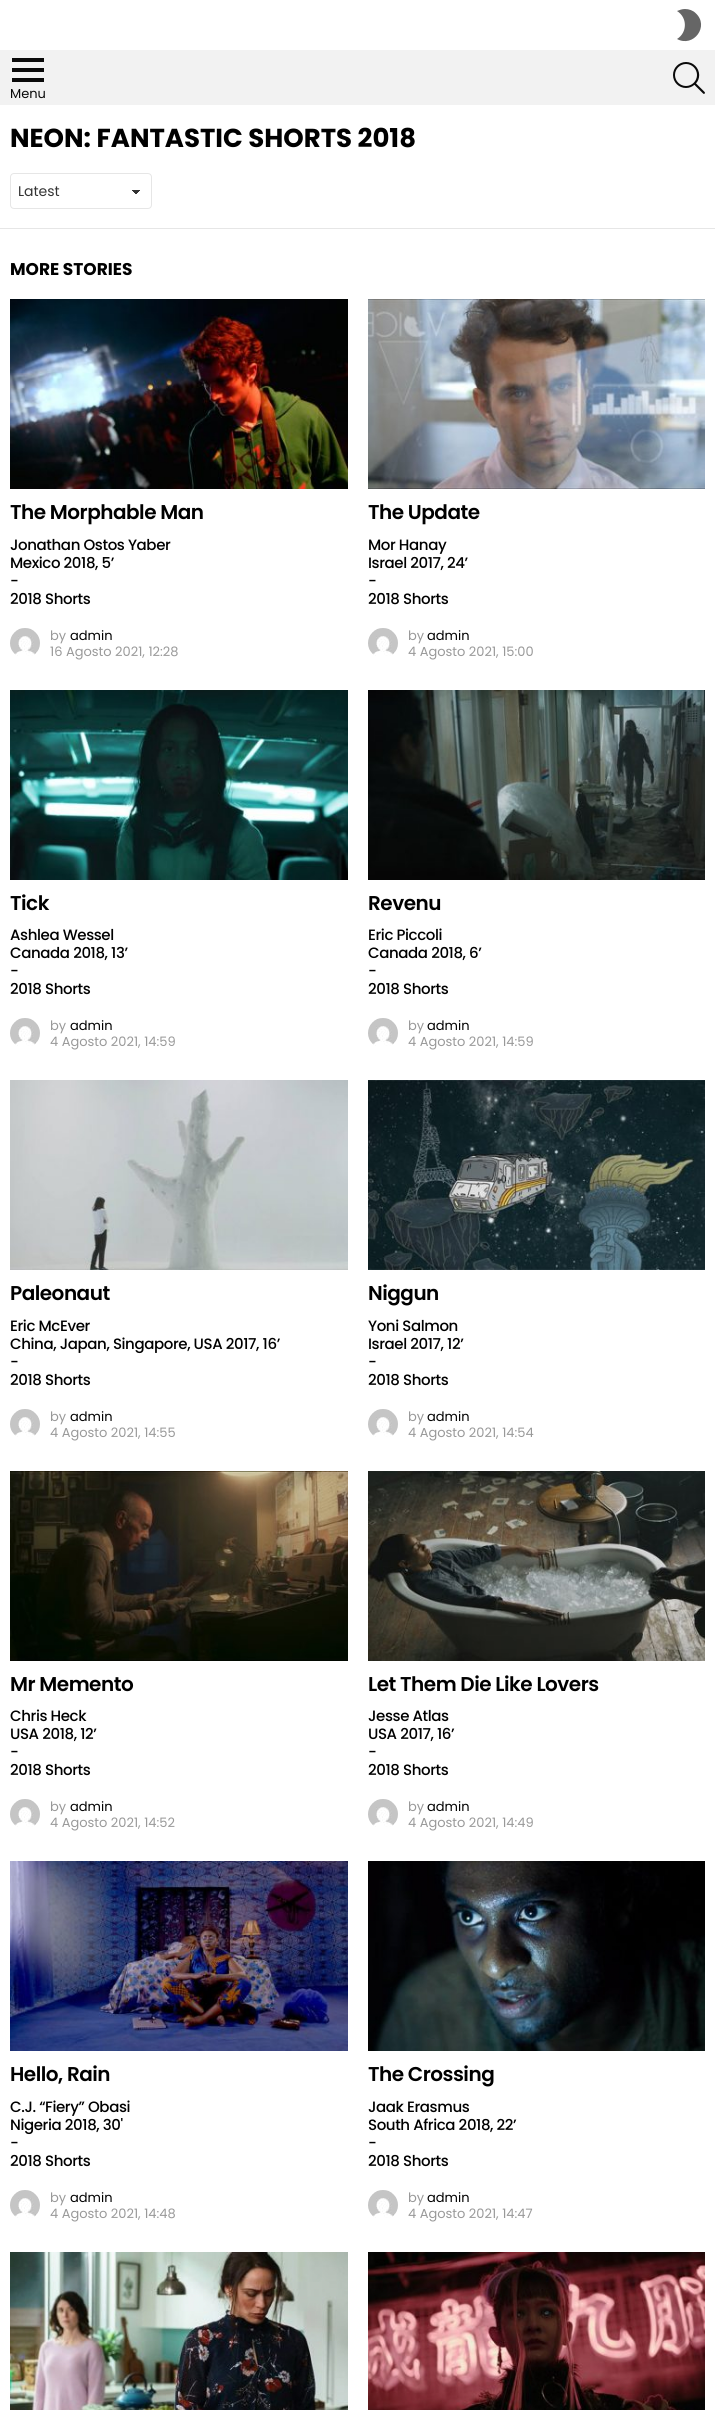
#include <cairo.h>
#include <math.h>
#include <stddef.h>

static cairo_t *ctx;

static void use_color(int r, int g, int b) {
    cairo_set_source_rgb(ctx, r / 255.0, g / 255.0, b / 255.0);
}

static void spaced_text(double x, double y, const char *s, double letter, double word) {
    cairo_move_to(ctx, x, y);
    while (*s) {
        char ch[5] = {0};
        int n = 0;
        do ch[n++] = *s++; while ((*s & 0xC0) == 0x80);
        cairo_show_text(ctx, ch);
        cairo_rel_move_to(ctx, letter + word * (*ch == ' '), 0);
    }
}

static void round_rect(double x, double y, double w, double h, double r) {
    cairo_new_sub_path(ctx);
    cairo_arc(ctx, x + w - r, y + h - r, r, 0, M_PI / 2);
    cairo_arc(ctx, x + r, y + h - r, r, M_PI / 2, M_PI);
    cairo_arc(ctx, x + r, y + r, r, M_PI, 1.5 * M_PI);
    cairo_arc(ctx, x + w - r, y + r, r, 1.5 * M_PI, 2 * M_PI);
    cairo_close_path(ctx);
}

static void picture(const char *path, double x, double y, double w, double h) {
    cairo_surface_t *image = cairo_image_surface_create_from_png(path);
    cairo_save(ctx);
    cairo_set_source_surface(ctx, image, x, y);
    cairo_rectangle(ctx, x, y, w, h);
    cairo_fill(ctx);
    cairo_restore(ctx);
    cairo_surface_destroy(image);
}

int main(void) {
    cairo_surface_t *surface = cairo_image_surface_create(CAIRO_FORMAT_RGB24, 715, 2410);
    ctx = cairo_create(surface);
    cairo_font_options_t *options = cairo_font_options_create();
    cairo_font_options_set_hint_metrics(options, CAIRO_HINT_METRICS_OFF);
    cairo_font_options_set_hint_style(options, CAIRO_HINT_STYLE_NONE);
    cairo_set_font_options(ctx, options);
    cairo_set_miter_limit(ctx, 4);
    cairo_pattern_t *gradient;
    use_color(255, 255, 255);
    cairo_paint(ctx);
    use_color(102, 102, 102);
    cairo_new_path(ctx);
    cairo_move_to(ctx, 685, 9);
    cairo_curve_to(ctx, 682, 9, 679.5, 10, 677, 11);
    cairo_curve_to(ctx, 687.5, 17.5, 687.5, 32.5, 677, 39);
    cairo_curve_to(ctx, 693.5, 48, 710, 26, 695.5, 13);
    cairo_curve_to(ctx, 693, 10.5, 689, 9, 685, 9);
    cairo_close_path(ctx);
    cairo_fill(ctx);
    use_color(242, 242, 242);
    cairo_rectangle(ctx, 0, 50, 715, 55);
    cairo_fill(ctx);
    picture("img1.png", 12, 58, 32, 24);
    cairo_select_font_face(ctx, "Poppins", CAIRO_FONT_SLANT_NORMAL, CAIRO_FONT_WEIGHT_NORMAL);
    cairo_set_font_size(ctx, 13);
    use_color(10, 10, 10);
    cairo_move_to(ctx, 10, 98);
    cairo_show_text(ctx, "Menu");
    picture("img2.png", 673, 62, 32, 32);
    cairo_select_font_face(ctx, "Poppins", CAIRO_FONT_SLANT_NORMAL, CAIRO_FONT_WEIGHT_BOLD);
    cairo_set_font_size(ctx, 26);
    use_color(0, 0, 0);
    cairo_move_to(ctx, 10, 147);
    cairo_show_text(ctx, "NEON: FANTASTIC SHORTS 2018");
    gradient = cairo_pattern_create_linear(136, 190, 141, 194);
    cairo_pattern_add_color_stop_rgba(gradient, 0.5, 0.2, 0.2, 0.2, 1);
    cairo_pattern_add_color_stop_rgba(gradient, 0.5, 1, 1, 1, 1);
    cairo_set_source(ctx, gradient);
    cairo_pattern_destroy(gradient);
    cairo_rectangle(ctx, 136, 190, 5, 4);
    cairo_fill(ctx);
    gradient = cairo_pattern_create_linear(131, 194, 136, 190);
    cairo_pattern_add_color_stop_rgba(gradient, 0.5, 1, 1, 1, 1);
    cairo_pattern_add_color_stop_rgba(gradient, 0.5, 0.2, 0.2, 0.2, 1);
    cairo_set_source(ctx, gradient);
    cairo_pattern_destroy(gradient);
    cairo_rectangle(ctx, 131, 190, 5, 4);
    cairo_fill(ctx);
    round_rect(10.5, 173.5, 141, 35, 3.5);
    use_color(230, 230, 230);
    cairo_set_line_width(ctx, 1);
    cairo_stroke(ctx);
    cairo_select_font_face(ctx, "Poppins", CAIRO_FONT_SLANT_NORMAL, CAIRO_FONT_WEIGHT_NORMAL);
    cairo_set_font_size(ctx, 14);
    use_color(51, 51, 51);
    cairo_move_to(ctx, 18, 196);
    cairo_show_text(ctx, "Latest");
    use_color(230, 230, 230);
    cairo_rectangle(ctx, 0, 228, 715, 1);
    cairo_fill(ctx);
    cairo_select_font_face(ctx, "Poppins", CAIRO_FONT_SLANT_NORMAL, CAIRO_FONT_WEIGHT_BOLD);
    cairo_set_font_size(ctx, 17);
    use_color(0, 0, 0);
    cairo_move_to(ctx, 10, 275);
    cairo_show_text(ctx, "MORE STORIES");
    picture("img3.png", 10, 299, 338, 190);
    cairo_select_font_face(ctx, "Poppins SemiBold", CAIRO_FONT_SLANT_NORMAL, CAIRO_FONT_WEIGHT_NORMAL);
    cairo_set_font_size(ctx, 20);
    spaced_text(10, 519, "The Morphable Man", -0.5, 0);
    cairo_select_font_face(ctx, "Poppins Medium", CAIRO_FONT_SLANT_NORMAL, CAIRO_FONT_WEIGHT_NORMAL);
    cairo_set_font_size(ctx, 15);
    spaced_text(10, 550, "Jonathan Ostos Yaber", -0.4, 0);
    spaced_text(10, 568, "Mexico 2018, 5’", -0.4, 0);
    spaced_text(10, 586, "-", -0.4, 0);
    spaced_text(10, 604, "2018 Shorts", -0.4, 0);
    cairo_select_font_face(ctx, "Poppins", CAIRO_FONT_SLANT_NORMAL, CAIRO_FONT_WEIGHT_NORMAL);
    cairo_set_font_size(ctx, 13);
    use_color(153, 153, 153);
    cairo_move_to(ctx, 50, 640);
    cairo_show_text(ctx, "by");
    picture("img4.png", 10, 628, 30, 28);
    use_color(0, 0, 0);
    cairo_move_to(ctx, 70, 640);
    cairo_show_text(ctx, "admin");
    use_color(153, 153, 153);
    cairo_move_to(ctx, 50, 656);
    cairo_show_text(ctx, "16 Agosto 2021, 12:28");
    picture("img5.png", 368, 299, 337, 190);
    cairo_select_font_face(ctx, "Poppins SemiBold", CAIRO_FONT_SLANT_NORMAL, CAIRO_FONT_WEIGHT_NORMAL);
    cairo_set_font_size(ctx, 20);
    use_color(0, 0, 0);
    spaced_text(368, 519, "The Update", -0.5, 0);
    cairo_select_font_face(ctx, "Poppins Medium", CAIRO_FONT_SLANT_NORMAL, CAIRO_FONT_WEIGHT_NORMAL);
    cairo_set_font_size(ctx, 15);
    spaced_text(368, 550, "Mor Hanay", -0.4, 0);
    spaced_text(368, 568, "Israel 2017, 24’", -0.4, 0);
    spaced_text(368, 586, "-", -0.4, 0);
    spaced_text(368, 604, "2018 Shorts", -0.4, 0);
    cairo_select_font_face(ctx, "Poppins", CAIRO_FONT_SLANT_NORMAL, CAIRO_FONT_WEIGHT_NORMAL);
    cairo_set_font_size(ctx, 13);
    use_color(153, 153, 153);
    cairo_move_to(ctx, 408, 640);
    cairo_show_text(ctx, "by");
    picture("img4.png", 368, 628, 30, 28);
    use_color(0, 0, 0);
    cairo_move_to(ctx, 427, 640);
    cairo_show_text(ctx, "admin");
    use_color(153, 153, 153);
    cairo_move_to(ctx, 408, 656);
    cairo_show_text(ctx, "4 Agosto 2021, 15:00");
    picture("img6.png", 10, 690, 338, 190);
    cairo_select_font_face(ctx, "Poppins SemiBold", CAIRO_FONT_SLANT_NORMAL, CAIRO_FONT_WEIGHT_NORMAL);
    cairo_set_font_size(ctx, 20);
    use_color(0, 0, 0);
    spaced_text(10, 910, "Tick", -0.5, 0);
    cairo_select_font_face(ctx, "Poppins Medium", CAIRO_FONT_SLANT_NORMAL, CAIRO_FONT_WEIGHT_NORMAL);
    cairo_set_font_size(ctx, 15);
    spaced_text(10, 940, "Ashlea Wessel", -0.4, 0);
    spaced_text(10, 958, "Canada 2018, 13’", -0.4, 0);
    spaced_text(10, 976, "-", -0.4, 0);
    spaced_text(10, 994, "2018 Shorts", -0.4, 0);
    cairo_select_font_face(ctx, "Poppins", CAIRO_FONT_SLANT_NORMAL, CAIRO_FONT_WEIGHT_NORMAL);
    cairo_set_font_size(ctx, 13);
    use_color(153, 153, 153);
    cairo_move_to(ctx, 50, 1030);
    cairo_show_text(ctx, "by");
    picture("img4.png", 10, 1018, 30, 28);
    use_color(0, 0, 0);
    cairo_move_to(ctx, 70, 1030);
    cairo_show_text(ctx, "admin");
    use_color(153, 153, 153);
    cairo_move_to(ctx, 50, 1046);
    cairo_show_text(ctx, "4 Agosto 2021, 14:59");
    picture("img7.png", 368, 690, 337, 190);
    cairo_select_font_face(ctx, "Poppins SemiBold", CAIRO_FONT_SLANT_NORMAL, CAIRO_FONT_WEIGHT_NORMAL);
    cairo_set_font_size(ctx, 20);
    use_color(0, 0, 0);
    spaced_text(368, 910, "Revenu", -0.5, 0);
    cairo_select_font_face(ctx, "Poppins Medium", CAIRO_FONT_SLANT_NORMAL, CAIRO_FONT_WEIGHT_NORMAL);
    cairo_set_font_size(ctx, 15);
    spaced_text(368, 940, "Eric Piccoli", -0.4, 0);
    spaced_text(368, 958, "Canada 2018, 6’", -0.4, 0);
    spaced_text(368, 976, "-", -0.4, 0);
    spaced_text(368, 994, "2018 Shorts", -0.4, 0);
    cairo_select_font_face(ctx, "Poppins", CAIRO_FONT_SLANT_NORMAL, CAIRO_FONT_WEIGHT_NORMAL);
    cairo_set_font_size(ctx, 13);
    use_color(153, 153, 153);
    cairo_move_to(ctx, 408, 1030);
    cairo_show_text(ctx, "by");
    picture("img4.png", 368, 1018, 30, 28);
    use_color(0, 0, 0);
    cairo_move_to(ctx, 427, 1030);
    cairo_show_text(ctx, "admin");
    use_color(153, 153, 153);
    cairo_move_to(ctx, 408, 1046);
    cairo_show_text(ctx, "4 Agosto 2021, 14:59");
    picture("img8.png", 10, 1080, 338, 190);
    cairo_select_font_face(ctx, "Poppins SemiBold", CAIRO_FONT_SLANT_NORMAL, CAIRO_FONT_WEIGHT_NORMAL);
    cairo_set_font_size(ctx, 20);
    use_color(0, 0, 0);
    spaced_text(10, 1300, "Paleonaut", -0.5, 0);
    cairo_select_font_face(ctx, "Poppins Medium", CAIRO_FONT_SLANT_NORMAL, CAIRO_FONT_WEIGHT_NORMAL);
    cairo_set_font_size(ctx, 15);
    spaced_text(10, 1331, "Eric McEver", -0.4, 0);
    spaced_text(10, 1349, "China, Japan, Singapore, USA 2017, 16’", -0.4, 0);
    spaced_text(10, 1367, "-", -0.4, 0);
    spaced_text(10, 1385, "2018 Shorts", -0.4, 0);
    cairo_select_font_face(ctx, "Poppins", CAIRO_FONT_SLANT_NORMAL, CAIRO_FONT_WEIGHT_NORMAL);
    cairo_set_font_size(ctx, 13);
    use_color(153, 153, 153);
    cairo_move_to(ctx, 50, 1421);
    cairo_show_text(ctx, "by");
    picture("img4.png", 10, 1409, 30, 28);
    use_color(0, 0, 0);
    cairo_move_to(ctx, 70, 1421);
    cairo_show_text(ctx, "admin");
    use_color(153, 153, 153);
    cairo_move_to(ctx, 50, 1437);
    cairo_show_text(ctx, "4 Agosto 2021, 14:55");
    picture("img9.png", 368, 1080, 337, 190);
    cairo_select_font_face(ctx, "Poppins SemiBold", CAIRO_FONT_SLANT_NORMAL, CAIRO_FONT_WEIGHT_NORMAL);
    cairo_set_font_size(ctx, 20);
    use_color(0, 0, 0);
    spaced_text(368, 1300, "Niggun", -0.5, 0);
    cairo_select_font_face(ctx, "Poppins Medium", CAIRO_FONT_SLANT_NORMAL, CAIRO_FONT_WEIGHT_NORMAL);
    cairo_set_font_size(ctx, 15);
    spaced_text(368, 1331, "Yoni Salmon", -0.4, 0);
    spaced_text(368, 1349, "Israel 2017, 12’", -0.4, 0);
    spaced_text(368, 1367, "-", -0.4, 0);
    spaced_text(368, 1385, "2018 Shorts", -0.4, 0);
    cairo_select_font_face(ctx, "Poppins", CAIRO_FONT_SLANT_NORMAL, CAIRO_FONT_WEIGHT_NORMAL);
    cairo_set_font_size(ctx, 13);
    use_color(153, 153, 153);
    cairo_move_to(ctx, 408, 1421);
    cairo_show_text(ctx, "by");
    picture("img4.png", 368, 1409, 30, 28);
    use_color(0, 0, 0);
    cairo_move_to(ctx, 427, 1421);
    cairo_show_text(ctx, "admin");
    use_color(153, 153, 153);
    cairo_move_to(ctx, 408, 1437);
    cairo_show_text(ctx, "4 Agosto 2021, 14:54");
    picture("img10.png", 10, 1471, 338, 190);
    cairo_select_font_face(ctx, "Poppins SemiBold", CAIRO_FONT_SLANT_NORMAL, CAIRO_FONT_WEIGHT_NORMAL);
    cairo_set_font_size(ctx, 20);
    use_color(0, 0, 0);
    spaced_text(10, 1691, "Mr Memento", -0.5, 0);
    cairo_select_font_face(ctx, "Poppins Medium", CAIRO_FONT_SLANT_NORMAL, CAIRO_FONT_WEIGHT_NORMAL);
    cairo_set_font_size(ctx, 15);
    spaced_text(10, 1721, "Chris Heck", -0.4, 0);
    spaced_text(10, 1739, "USA 2018, 12’", -0.4, 0);
    spaced_text(10, 1757, "-", -0.4, 0);
    spaced_text(10, 1775, "2018 Shorts", -0.4, 0);
    cairo_select_font_face(ctx, "Poppins", CAIRO_FONT_SLANT_NORMAL, CAIRO_FONT_WEIGHT_NORMAL);
    cairo_set_font_size(ctx, 13);
    use_color(153, 153, 153);
    cairo_move_to(ctx, 50, 1811);
    cairo_show_text(ctx, "by");
    picture("img4.png", 10, 1799, 30, 28);
    use_color(0, 0, 0);
    cairo_move_to(ctx, 70, 1811);
    cairo_show_text(ctx, "admin");
    use_color(153, 153, 153);
    cairo_move_to(ctx, 50, 1827);
    cairo_show_text(ctx, "4 Agosto 2021, 14:52");
    picture("img11.png", 368, 1471, 337, 190);
    cairo_select_font_face(ctx, "Poppins SemiBold", CAIRO_FONT_SLANT_NORMAL, CAIRO_FONT_WEIGHT_NORMAL);
    cairo_set_font_size(ctx, 20);
    use_color(0, 0, 0);
    spaced_text(368, 1691, "Let Them Die Like Lovers", -0.5, 0);
    cairo_select_font_face(ctx, "Poppins Medium", CAIRO_FONT_SLANT_NORMAL, CAIRO_FONT_WEIGHT_NORMAL);
    cairo_set_font_size(ctx, 15);
    spaced_text(368, 1721, "Jesse Atlas", -0.4, 0);
    spaced_text(368, 1739, "USA 2017, 16’", -0.4, 0);
    spaced_text(368, 1757, "-", -0.4, 0);
    spaced_text(368, 1775, "2018 Shorts", -0.4, 0);
    cairo_select_font_face(ctx, "Poppins", CAIRO_FONT_SLANT_NORMAL, CAIRO_FONT_WEIGHT_NORMAL);
    cairo_set_font_size(ctx, 13);
    use_color(153, 153, 153);
    cairo_move_to(ctx, 408, 1811);
    cairo_show_text(ctx, "by");
    picture("img4.png", 368, 1799, 30, 28);
    use_color(0, 0, 0);
    cairo_move_to(ctx, 427, 1811);
    cairo_show_text(ctx, "admin");
    use_color(153, 153, 153);
    cairo_move_to(ctx, 408, 1827);
    cairo_show_text(ctx, "4 Agosto 2021, 14:49");
    picture("img12.png", 10, 1861, 338, 190);
    cairo_select_font_face(ctx, "Poppins SemiBold", CAIRO_FONT_SLANT_NORMAL, CAIRO_FONT_WEIGHT_NORMAL);
    cairo_set_font_size(ctx, 20);
    use_color(0, 0, 0);
    spaced_text(10, 2081, "Hello, Rain", -0.5, 0);
    cairo_select_font_face(ctx, "Poppins Medium", CAIRO_FONT_SLANT_NORMAL, CAIRO_FONT_WEIGHT_NORMAL);
    cairo_set_font_size(ctx, 15);
    spaced_text(10, 2112, "C.J. “Fiery” Obasi", -0.4, 0);
    spaced_text(10, 2130, "Nigeria 2018, 30'", -0.4, 0);
    spaced_text(10, 2148, "-", -0.4, 0);
    spaced_text(10, 2166, "2018 Shorts", -0.4, 0);
    cairo_select_font_face(ctx, "Poppins", CAIRO_FONT_SLANT_NORMAL, CAIRO_FONT_WEIGHT_NORMAL);
    cairo_set_font_size(ctx, 13);
    use_color(153, 153, 153);
    cairo_move_to(ctx, 50, 2202);
    cairo_show_text(ctx, "by");
    picture("img4.png", 10, 2190, 30, 28);
    use_color(0, 0, 0);
    cairo_move_to(ctx, 70, 2202);
    cairo_show_text(ctx, "admin");
    use_color(153, 153, 153);
    cairo_move_to(ctx, 50, 2218);
    cairo_show_text(ctx, "4 Agosto 2021, 14:48");
    picture("img13.png", 368, 1861, 337, 190);
    cairo_select_font_face(ctx, "Poppins SemiBold", CAIRO_FONT_SLANT_NORMAL, CAIRO_FONT_WEIGHT_NORMAL);
    cairo_set_font_size(ctx, 20);
    use_color(0, 0, 0);
    spaced_text(368, 2081, "The Crossing", -0.5, 0);
    cairo_select_font_face(ctx, "Poppins Medium", CAIRO_FONT_SLANT_NORMAL, CAIRO_FONT_WEIGHT_NORMAL);
    cairo_set_font_size(ctx, 15);
    spaced_text(368, 2112, "Jaak Erasmus", -0.4, 0);
    spaced_text(368, 2130, "South Africa 2018, 22’", -0.4, 0);
    spaced_text(368, 2148, "-", -0.4, 0);
    spaced_text(368, 2166, "2018 Shorts", -0.4, 0);
    cairo_select_font_face(ctx, "Poppins", CAIRO_FONT_SLANT_NORMAL, CAIRO_FONT_WEIGHT_NORMAL);
    cairo_set_font_size(ctx, 13);
    use_color(153, 153, 153);
    cairo_move_to(ctx, 408, 2202);
    cairo_show_text(ctx, "by");
    picture("img4.png", 368, 2190, 30, 28);
    use_color(0, 0, 0);
    cairo_move_to(ctx, 427, 2202);
    cairo_show_text(ctx, "admin");
    use_color(153, 153, 153);
    cairo_move_to(ctx, 408, 2218);
    cairo_show_text(ctx, "4 Agosto 2021, 14:47");
    picture("img14.png", 10, 2252, 338, 158);
    picture("img15.png", 368, 2252, 337, 158);
    cairo_surface_write_to_png(surface, "result.png");
    cairo_font_options_destroy(options);
    cairo_destroy(ctx);
    cairo_surface_destroy(surface);
    return 0;
}
